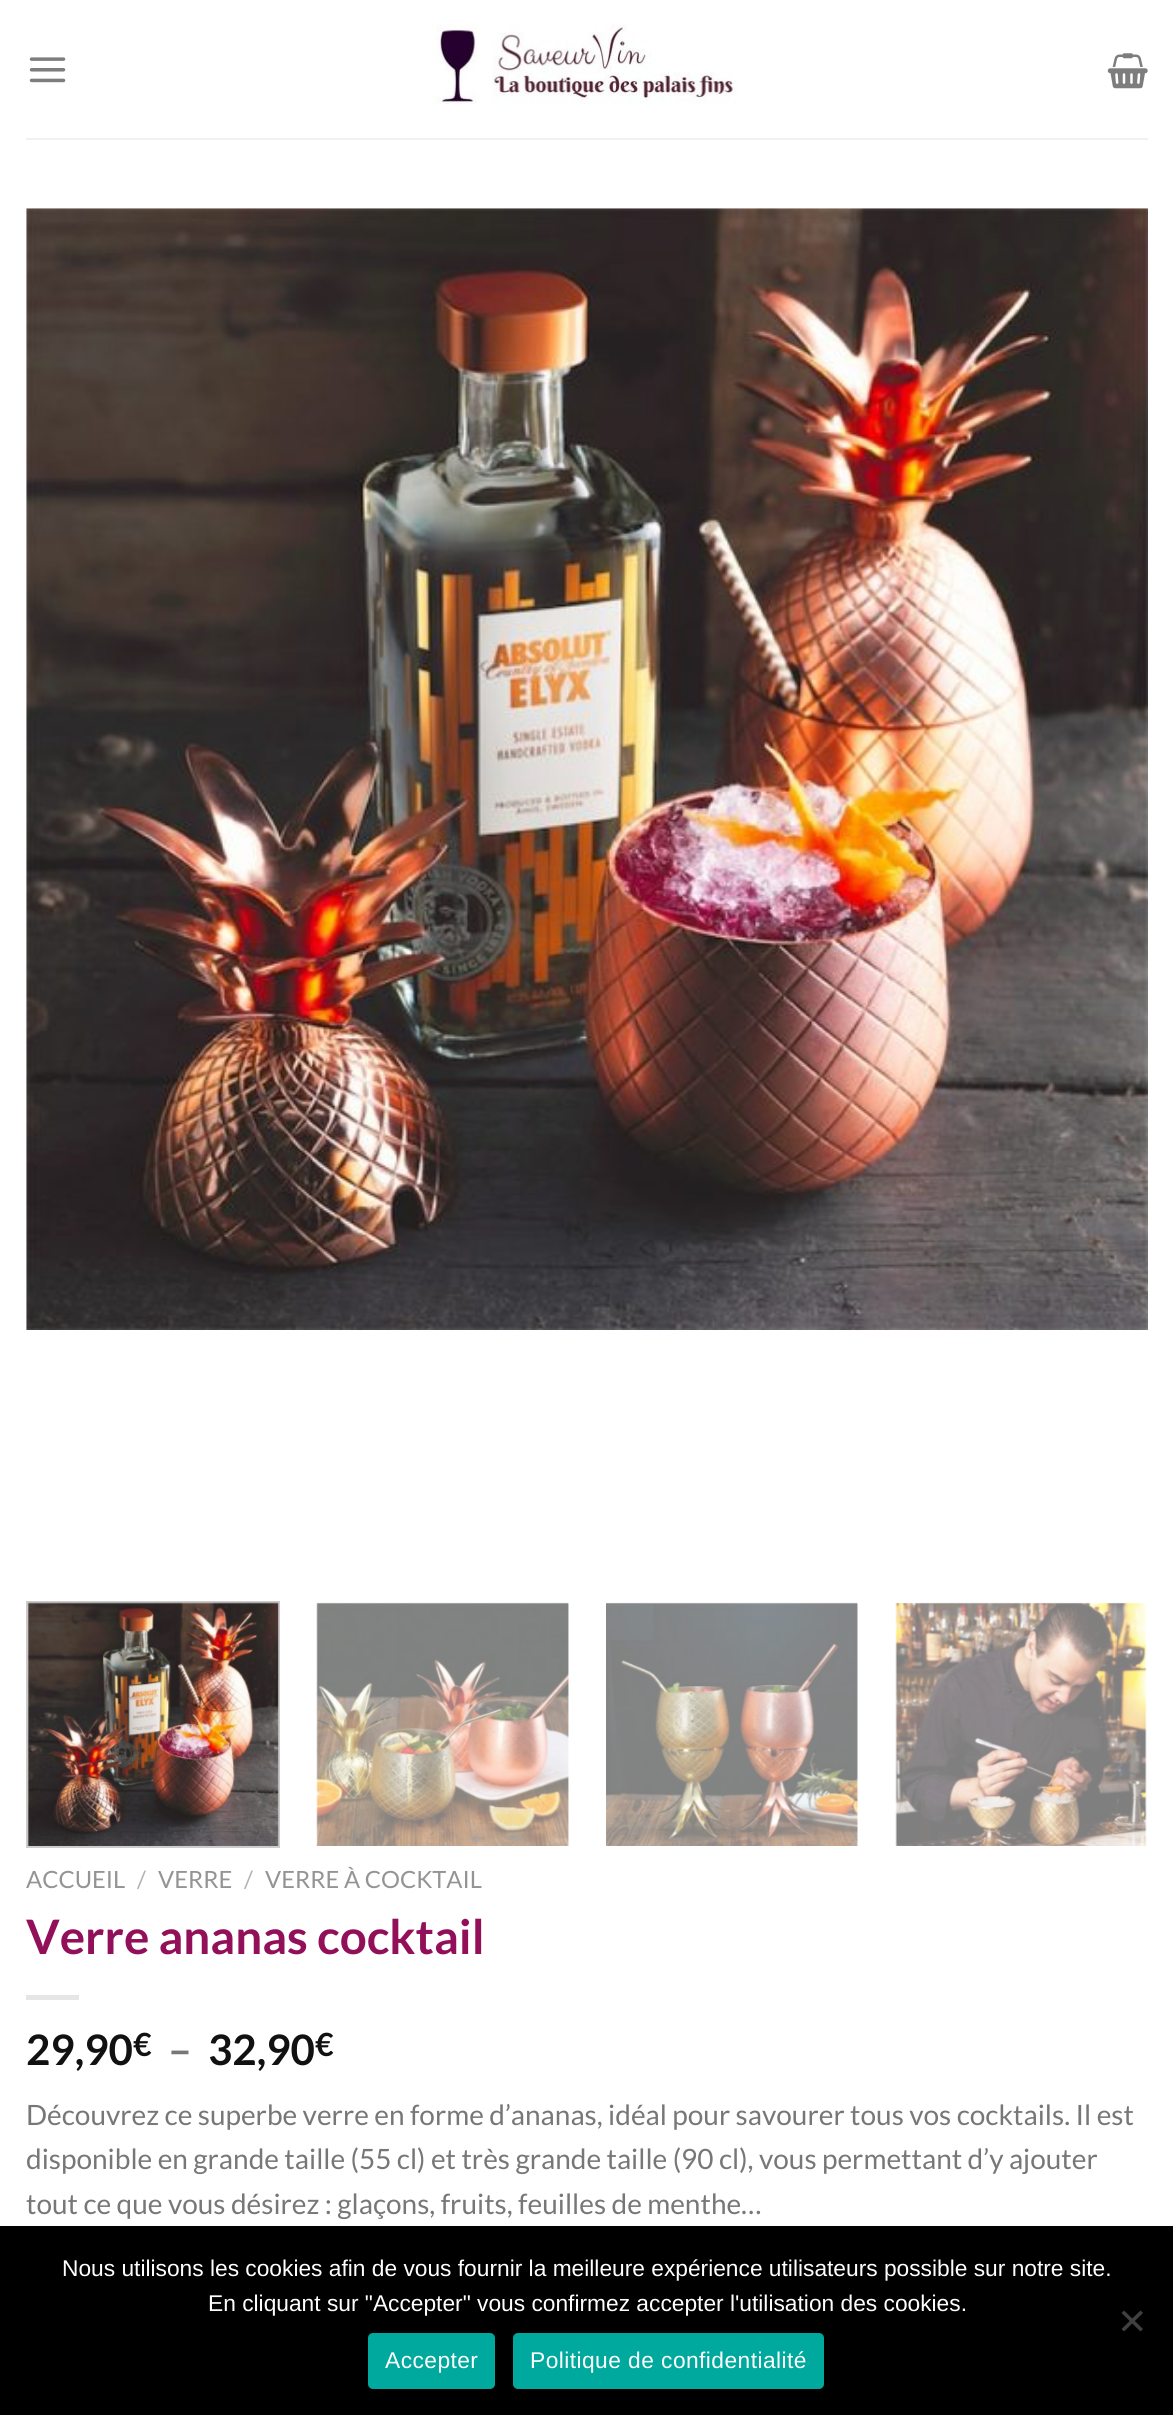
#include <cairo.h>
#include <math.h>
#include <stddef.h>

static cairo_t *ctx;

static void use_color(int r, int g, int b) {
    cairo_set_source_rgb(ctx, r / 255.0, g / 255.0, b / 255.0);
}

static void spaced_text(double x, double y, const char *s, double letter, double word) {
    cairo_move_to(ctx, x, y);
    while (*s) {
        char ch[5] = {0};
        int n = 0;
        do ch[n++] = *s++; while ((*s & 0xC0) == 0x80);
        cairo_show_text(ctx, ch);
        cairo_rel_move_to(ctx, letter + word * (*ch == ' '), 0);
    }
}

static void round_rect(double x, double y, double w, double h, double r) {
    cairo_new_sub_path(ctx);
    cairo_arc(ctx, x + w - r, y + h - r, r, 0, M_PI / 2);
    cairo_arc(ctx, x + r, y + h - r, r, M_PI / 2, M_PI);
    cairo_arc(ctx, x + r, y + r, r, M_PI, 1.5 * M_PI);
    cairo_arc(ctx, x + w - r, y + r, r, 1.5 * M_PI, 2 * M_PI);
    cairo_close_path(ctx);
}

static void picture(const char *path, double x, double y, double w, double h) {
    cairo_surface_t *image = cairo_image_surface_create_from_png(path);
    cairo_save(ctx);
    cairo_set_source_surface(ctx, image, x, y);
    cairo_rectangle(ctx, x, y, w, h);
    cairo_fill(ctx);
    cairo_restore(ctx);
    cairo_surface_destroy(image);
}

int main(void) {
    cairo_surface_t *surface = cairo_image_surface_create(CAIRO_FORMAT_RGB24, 1173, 2415);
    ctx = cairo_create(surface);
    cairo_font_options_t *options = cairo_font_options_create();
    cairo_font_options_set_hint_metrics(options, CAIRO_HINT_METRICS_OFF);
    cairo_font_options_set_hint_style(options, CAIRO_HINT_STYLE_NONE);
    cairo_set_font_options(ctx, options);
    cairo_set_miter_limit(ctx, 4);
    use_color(255, 255, 255);
    cairo_paint(ctx);
    picture("img1.png", 29, 57, 37, 26);
    picture("img2.png", 432, 24, 306, 80);
    picture("img3.png", 1107, 53, 41, 36);
    use_color(241, 241, 241);
    cairo_rectangle(ctx, 26, 138, 1122, 2);
    cairo_fill(ctx);
    picture("img4.png", 26, 208, 1122, 1122);
    cairo_rectangle(ctx, 27, 1602, 252, 245);
    use_color(204, 204, 204);
    cairo_stroke(ctx);
    picture("img5.png", 27, 1602, 252, 244);
    picture("img6.png", 316, 1602, 253, 244);
    picture("img7.png", 606, 1602, 252, 244);
    picture("img8.png", 895, 1602, 252, 244);
    cairo_select_font_face(ctx, "Lato", CAIRO_FONT_SLANT_NORMAL, CAIRO_FONT_WEIGHT_NORMAL);
    cairo_set_font_size(ctx, 23.75);
    use_color(148, 148, 148);
    cairo_move_to(ctx, 26, 1888);
    cairo_show_text(ctx, "ACCUEIL");
    use_color(178, 178, 178);
    cairo_move_to(ctx, 137, 1888);
    cairo_show_text(ctx, "/");
    use_color(148, 148, 148);
    cairo_move_to(ctx, 158, 1888);
    cairo_show_text(ctx, "VERRE");
    use_color(178, 178, 178);
    cairo_move_to(ctx, 244, 1888);
    cairo_show_text(ctx, "/");
    use_color(148, 148, 148);
    cairo_move_to(ctx, 265, 1888);
    cairo_show_text(ctx, "VERRE À COCKTAIL");
    cairo_select_font_face(ctx, "Lato", CAIRO_FONT_SLANT_NORMAL, CAIRO_FONT_WEIGHT_BOLD);
    cairo_set_font_size(ctx, 47.5);
    use_color(146, 16, 90);
    cairo_move_to(ctx, 26, 1954);
    cairo_show_text(ctx, "Verre ananas cocktail");
    use_color(230, 230, 230);
    cairo_rectangle(ctx, 26, 1995, 53, 5);
    cairo_fill(ctx);
    cairo_set_font_size(ctx, 42);
    use_color(17, 17, 17);
    cairo_move_to(ctx, 26, 2065);
    cairo_show_text(ctx, "29,90");
    cairo_set_font_size(ctx, 32);
    cairo_move_to(ctx, 133, 2056);
    cairo_show_text(ctx, "€");
    cairo_set_font_size(ctx, 42);
    use_color(119, 119, 119);
    cairo_move_to(ctx, 168, 2065);
    cairo_show_text(ctx, "–");
    use_color(17, 17, 17);
    cairo_move_to(ctx, 208, 2065);
    cairo_show_text(ctx, "32,90");
    cairo_set_font_size(ctx, 32);
    cairo_move_to(ctx, 315, 2056);
    cairo_show_text(ctx, "€");
    cairo_select_font_face(ctx, "Lato", CAIRO_FONT_SLANT_NORMAL, CAIRO_FONT_WEIGHT_NORMAL);
    cairo_set_font_size(ctx, 28);
    use_color(119, 119, 119);
    cairo_move_to(ctx, 26, 2125);
    cairo_show_text(ctx, "Découvrez ce superbe verre en forme d’ananas, idéal pour savourer tous vos cocktails. Il est");
    cairo_move_to(ctx, 26, 2169);
    cairo_show_text(ctx, "disponible en grande taille (55 cl) et très grande taille (90 cl), vous permettant d’y ajouter");
    cairo_move_to(ctx, 26, 2214);
    cairo_show_text(ctx, "tout ce que vous désirez : glaçons, fruits, feuilles de menthe…");
    use_color(0, 0, 0);
    cairo_rectangle(ctx, 0, 2226, 1173, 189);
    cairo_fill(ctx);
    cairo_select_font_face(ctx, "Liberation Sans", CAIRO_FONT_SLANT_NORMAL, CAIRO_FONT_WEIGHT_NORMAL);
    cairo_set_font_size(ctx, 22.75);
    use_color(255, 255, 255);
    cairo_move_to(ctx, 62, 2276);
    cairo_show_text(ctx, "Nous utilisons les cookies afin de vous fournir la meilleure expérience utilisateurs possible sur notre site.");
    cairo_move_to(ctx, 208, 2311);
    cairo_show_text(ctx, "En cliquant sur \"Accepter\" vous confirmez accepter l'utilisation des cookies.");
    use_color(64, 64, 64);
    cairo_new_path(ctx);
    cairo_move_to(ctx, 1140.5, 2310.5);
    cairo_line_to(ctx, 1143, 2313);
    cairo_line_to(ctx, 1124, 2331.5);
    cairo_line_to(ctx, 1121.5, 2329);
    cairo_close_path(ctx);
    cairo_fill(ctx);
    cairo_new_path(ctx);
    cairo_move_to(ctx, 1121.5, 2313);
    cairo_line_to(ctx, 1124, 2310.5);
    cairo_line_to(ctx, 1143, 2329);
    cairo_line_to(ctx, 1140.5, 2331.5);
    cairo_close_path(ctx);
    cairo_fill(ctx);
    use_color(0, 169, 157);
    round_rect(368, 2333, 127, 56, 5);
    cairo_fill(ctx);
    use_color(255, 255, 255);
    spaced_text(385, 2368, "Accepter", 0.45, 0);
    use_color(0, 169, 157);
    round_rect(513, 2333, 311, 56, 5);
    cairo_fill(ctx);
    use_color(255, 255, 255);
    spaced_text(530, 2368, "Politique de confidentialité", 0.45, 0);
    cairo_surface_write_to_png(surface, "result.png");
    cairo_font_options_destroy(options);
    cairo_destroy(ctx);
    cairo_surface_destroy(surface);
    return 0;
}
